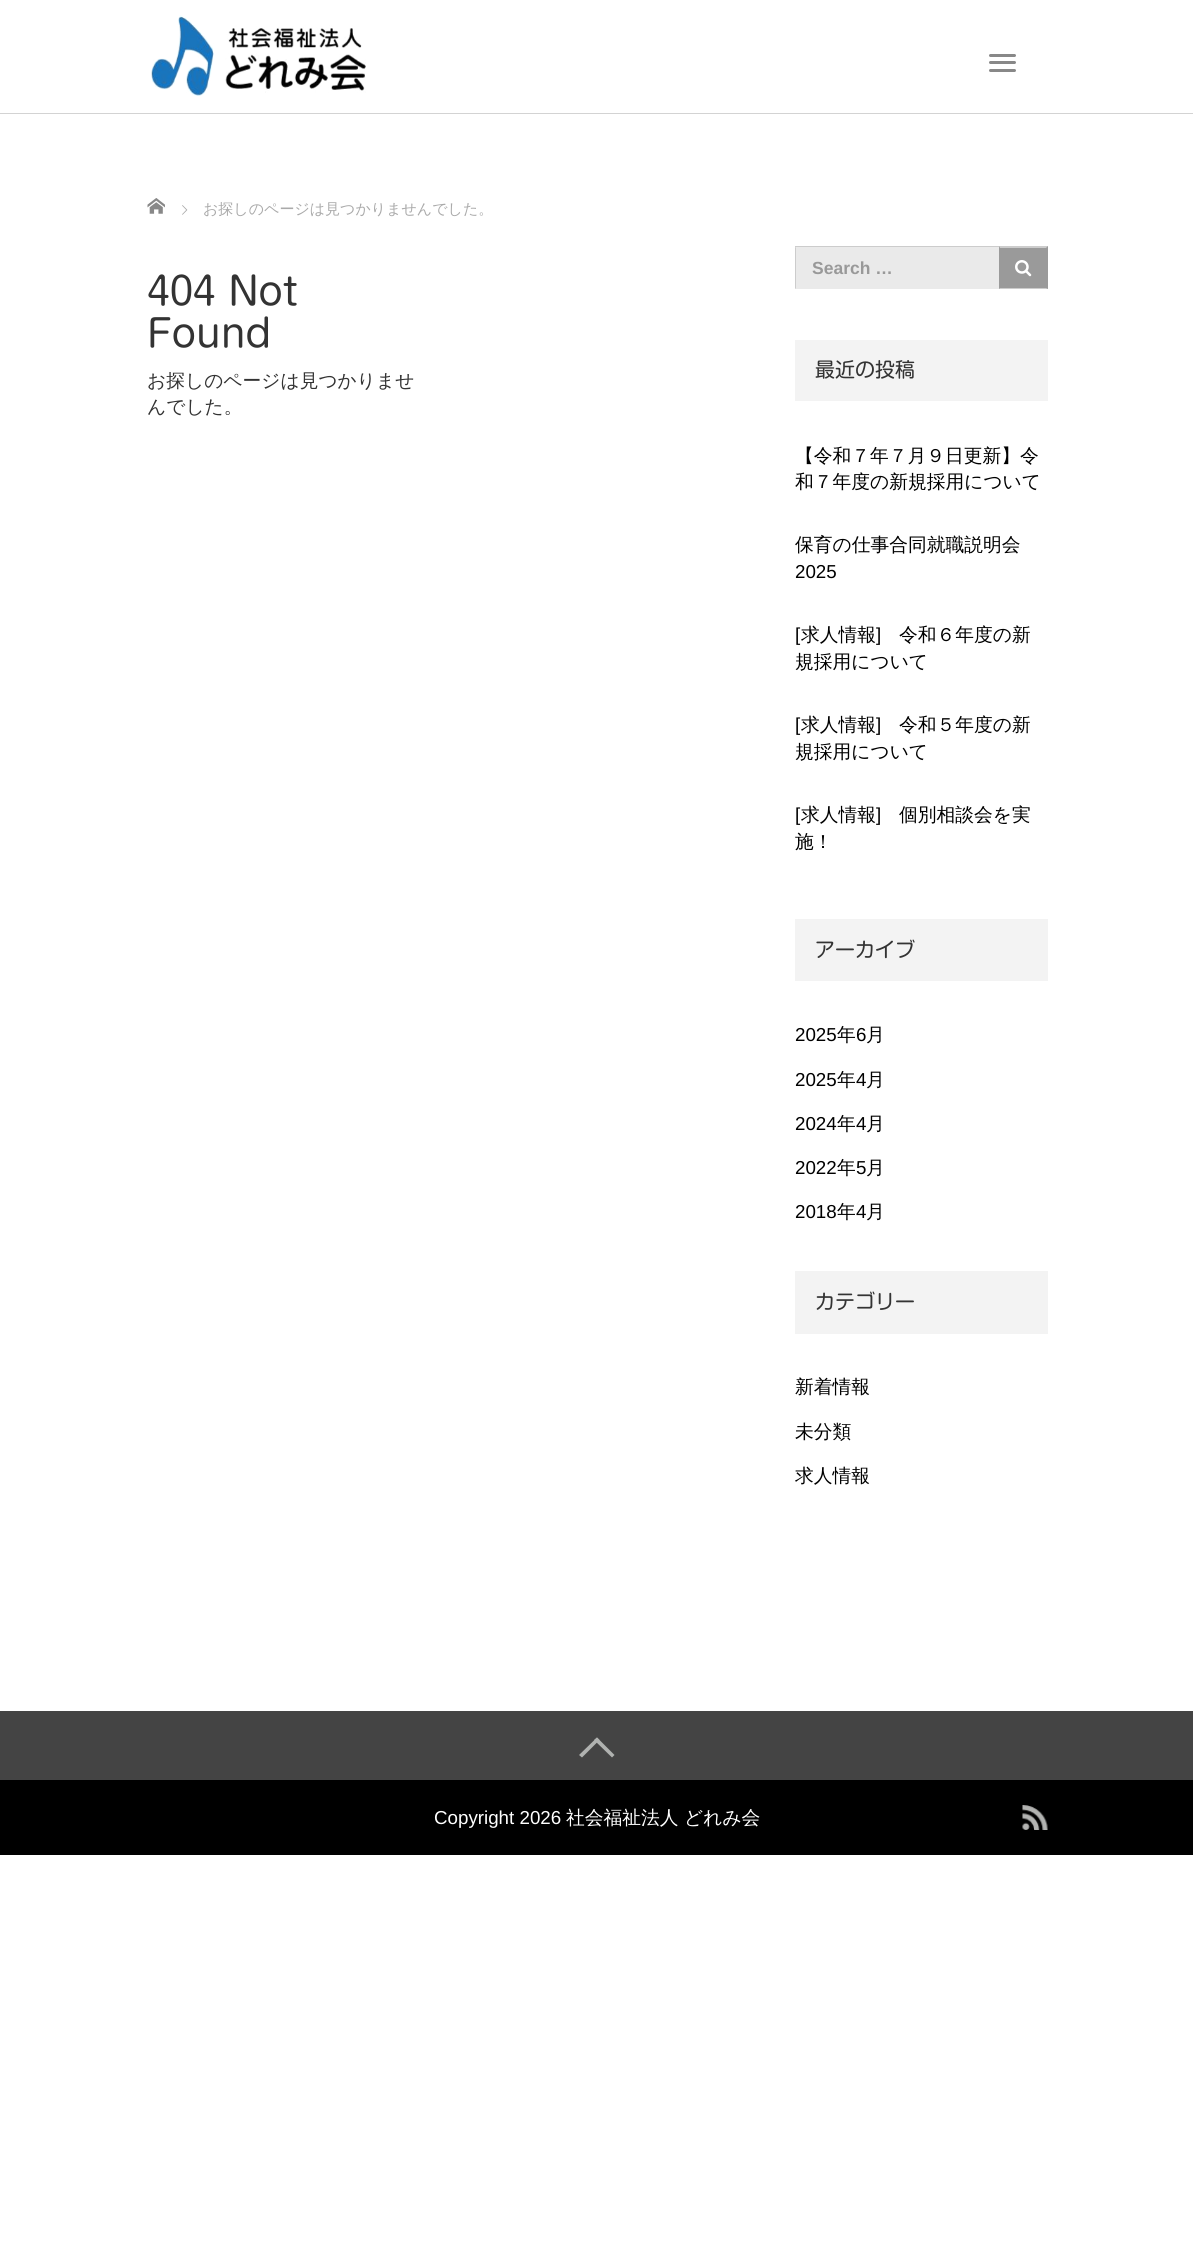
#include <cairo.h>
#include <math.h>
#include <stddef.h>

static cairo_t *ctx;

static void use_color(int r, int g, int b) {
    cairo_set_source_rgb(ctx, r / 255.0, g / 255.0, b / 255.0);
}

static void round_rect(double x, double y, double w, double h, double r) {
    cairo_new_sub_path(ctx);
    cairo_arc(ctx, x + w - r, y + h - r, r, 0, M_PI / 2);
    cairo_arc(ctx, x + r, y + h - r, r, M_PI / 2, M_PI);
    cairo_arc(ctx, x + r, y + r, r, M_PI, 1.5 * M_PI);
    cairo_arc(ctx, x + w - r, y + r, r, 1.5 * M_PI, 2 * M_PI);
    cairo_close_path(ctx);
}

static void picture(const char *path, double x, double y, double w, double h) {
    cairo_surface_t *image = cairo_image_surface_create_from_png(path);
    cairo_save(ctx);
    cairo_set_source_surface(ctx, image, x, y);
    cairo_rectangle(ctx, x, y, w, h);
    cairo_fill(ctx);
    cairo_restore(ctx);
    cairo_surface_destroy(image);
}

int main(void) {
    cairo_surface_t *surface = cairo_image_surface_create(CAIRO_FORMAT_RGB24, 1193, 2260);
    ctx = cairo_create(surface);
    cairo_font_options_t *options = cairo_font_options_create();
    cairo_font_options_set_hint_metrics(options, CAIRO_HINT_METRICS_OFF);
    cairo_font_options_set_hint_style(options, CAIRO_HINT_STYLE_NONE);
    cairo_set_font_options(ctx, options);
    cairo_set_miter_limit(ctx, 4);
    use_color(255, 255, 255);
    cairo_paint(ctx);
    use_color(211, 211, 211);
    cairo_rectangle(ctx, 0, 113, 1193, 1);
    cairo_fill(ctx);
    picture("img1.png", 151, 15, 215, 81);
    use_color(136, 136, 136);
    round_rect(989, 54, 27, 3, 1.5);
    cairo_fill(ctx);
    round_rect(989, 61, 27, 3, 1.5);
    cairo_fill(ctx);
    round_rect(989, 69, 27, 3, 1.5);
    cairo_fill(ctx);
    picture("img2.png", 147, 198, 18, 16);
    picture("img3.png", 182, 205, 6, 10);
    cairo_select_font_face(ctx, "WenQuanYi Zen Hei Medium", CAIRO_FONT_SLANT_NORMAL, CAIRO_FONT_WEIGHT_NORMAL);
    cairo_set_font_size(ctx, 15);
    use_color(170, 170, 170);
    cairo_move_to(ctx, 203, 214);
    cairo_show_text(ctx, "お探しのページは見つかりませんでした。");
    cairo_select_font_face(ctx, "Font", CAIRO_FONT_SLANT_NORMAL, CAIRO_FONT_WEIGHT_NORMAL);
    cairo_set_font_size(ctx, 37.5);
    use_color(51, 51, 51);
    cairo_move_to(ctx, 147, 305);
    cairo_show_text(ctx, "404 Not");
    cairo_move_to(ctx, 147, 347);
    cairo_show_text(ctx, "Found");
    cairo_select_font_face(ctx, "WenQuanYi Zen Hei Medium", CAIRO_FONT_SLANT_NORMAL, CAIRO_FONT_WEIGHT_NORMAL);
    cairo_set_font_size(ctx, 18.75);
    cairo_move_to(ctx, 147, 387);
    cairo_show_text(ctx, "お探しのページは見つかりませ");
    cairo_move_to(ctx, 147, 413);
    cairo_show_text(ctx, "んでした。");
    use_color(234, 234, 234);
    cairo_rectangle(ctx, 795, 247, 204, 42);
    cairo_fill(ctx);
    use_color(204, 204, 204);
    cairo_rectangle(ctx, 795, 246, 205, 1);
    cairo_fill(ctx);
    cairo_new_path(ctx);
    cairo_move_to(ctx, 795, 289);
    cairo_line_to(ctx, 795, 246);
    cairo_line_to(ctx, 796, 248);
    cairo_line_to(ctx, 796, 288);
    cairo_close_path(ctx);
    cairo_fill(ctx);
    cairo_select_font_face(ctx, "Liberation Sans", CAIRO_FONT_SLANT_NORMAL, CAIRO_FONT_WEIGHT_BOLD);
    cairo_set_font_size(ctx, 17.5);
    use_color(153, 153, 153);
    cairo_move_to(ctx, 812, 274);
    cairo_show_text(ctx, "Search …");
    use_color(154, 154, 154);
    cairo_rectangle(ctx, 999, 246, 49, 43);
    cairo_fill(ctx);
    use_color(204, 204, 204);
    cairo_new_path(ctx);
    cairo_move_to(ctx, 999, 246);
    cairo_line_to(ctx, 1048, 246);
    cairo_line_to(ctx, 1046, 248);
    cairo_line_to(ctx, 1000, 248);
    cairo_close_path(ctx);
    cairo_move_to(ctx, 1048, 289);
    cairo_line_to(ctx, 999, 289);
    cairo_line_to(ctx, 1000, 288);
    cairo_line_to(ctx, 1046, 288);
    cairo_close_path(ctx);
    cairo_fill(ctx);
    picture("img4.png", 1015, 260, 17, 17);
    use_color(243, 243, 243);
    cairo_rectangle(ctx, 795, 340, 253, 61);
    cairo_fill(ctx);
    cairo_select_font_face(ctx, "Font", CAIRO_FONT_SLANT_NORMAL, CAIRO_FONT_WEIGHT_NORMAL);
    cairo_set_font_size(ctx, 20);
    use_color(51, 51, 51);
    cairo_move_to(ctx, 815, 377);
    cairo_show_text(ctx, "最近の投稿");
    cairo_select_font_face(ctx, "WenQuanYi Zen Hei Medium", CAIRO_FONT_SLANT_NORMAL, CAIRO_FONT_WEIGHT_NORMAL);
    cairo_set_font_size(ctx, 18.75);
    use_color(0, 0, 0);
    cairo_move_to(ctx, 795, 462);
    cairo_show_text(ctx, "【令和７年７月９日更新】令");
    cairo_move_to(ctx, 795, 488);
    cairo_show_text(ctx, "和７年度の新規採用について");
    cairo_move_to(ctx, 795, 551);
    cairo_show_text(ctx, "保育の仕事合同就職説明会");
    cairo_select_font_face(ctx, "Liberation Sans", CAIRO_FONT_SLANT_NORMAL, CAIRO_FONT_WEIGHT_NORMAL);
    cairo_move_to(ctx, 795, 578);
    cairo_show_text(ctx, "2025");
    cairo_move_to(ctx, 795, 641);
    cairo_show_text(ctx, "[");
    cairo_select_font_face(ctx, "WenQuanYi Zen Hei Medium", CAIRO_FONT_SLANT_NORMAL, CAIRO_FONT_WEIGHT_NORMAL);
    cairo_move_to(ctx, 801, 641);
    cairo_show_text(ctx, "求人情報");
    cairo_select_font_face(ctx, "Liberation Sans", CAIRO_FONT_SLANT_NORMAL, CAIRO_FONT_WEIGHT_NORMAL);
    cairo_move_to(ctx, 876, 641);
    cairo_show_text(ctx, "]");
    cairo_select_font_face(ctx, "WenQuanYi Zen Hei Medium", CAIRO_FONT_SLANT_NORMAL, CAIRO_FONT_WEIGHT_NORMAL);
    cairo_move_to(ctx, 899, 641);
    cairo_show_text(ctx, "令和６年度の新");
    cairo_move_to(ctx, 795, 668);
    cairo_show_text(ctx, "規採用について");
    cairo_select_font_face(ctx, "Liberation Sans", CAIRO_FONT_SLANT_NORMAL, CAIRO_FONT_WEIGHT_NORMAL);
    cairo_move_to(ctx, 795, 731);
    cairo_show_text(ctx, "[");
    cairo_select_font_face(ctx, "WenQuanYi Zen Hei Medium", CAIRO_FONT_SLANT_NORMAL, CAIRO_FONT_WEIGHT_NORMAL);
    cairo_move_to(ctx, 801, 731);
    cairo_show_text(ctx, "求人情報");
    cairo_select_font_face(ctx, "Liberation Sans", CAIRO_FONT_SLANT_NORMAL, CAIRO_FONT_WEIGHT_NORMAL);
    cairo_move_to(ctx, 876, 731);
    cairo_show_text(ctx, "]");
    cairo_select_font_face(ctx, "WenQuanYi Zen Hei Medium", CAIRO_FONT_SLANT_NORMAL, CAIRO_FONT_WEIGHT_NORMAL);
    cairo_move_to(ctx, 899, 731);
    cairo_show_text(ctx, "令和５年度の新");
    cairo_move_to(ctx, 795, 758);
    cairo_show_text(ctx, "規採用について");
    cairo_select_font_face(ctx, "Liberation Sans", CAIRO_FONT_SLANT_NORMAL, CAIRO_FONT_WEIGHT_NORMAL);
    cairo_move_to(ctx, 795, 821);
    cairo_show_text(ctx, "[");
    cairo_select_font_face(ctx, "WenQuanYi Zen Hei Medium", CAIRO_FONT_SLANT_NORMAL, CAIRO_FONT_WEIGHT_NORMAL);
    cairo_move_to(ctx, 801, 821);
    cairo_show_text(ctx, "求人情報");
    cairo_select_font_face(ctx, "Liberation Sans", CAIRO_FONT_SLANT_NORMAL, CAIRO_FONT_WEIGHT_NORMAL);
    cairo_move_to(ctx, 876, 821);
    cairo_show_text(ctx, "]");
    cairo_select_font_face(ctx, "WenQuanYi Zen Hei Medium", CAIRO_FONT_SLANT_NORMAL, CAIRO_FONT_WEIGHT_NORMAL);
    cairo_move_to(ctx, 899, 821);
    cairo_show_text(ctx, "個別相談会を実");
    cairo_move_to(ctx, 795, 848);
    cairo_show_text(ctx, "施！");
    use_color(243, 243, 243);
    cairo_rectangle(ctx, 795, 919, 253, 62);
    cairo_fill(ctx);
    cairo_select_font_face(ctx, "Font", CAIRO_FONT_SLANT_NORMAL, CAIRO_FONT_WEIGHT_NORMAL);
    cairo_set_font_size(ctx, 20);
    use_color(51, 51, 51);
    cairo_move_to(ctx, 815, 957);
    cairo_show_text(ctx, "アーカイブ");
    cairo_select_font_face(ctx, "Liberation Sans", CAIRO_FONT_SLANT_NORMAL, CAIRO_FONT_WEIGHT_NORMAL);
    cairo_set_font_size(ctx, 18.75);
    use_color(0, 0, 0);
    cairo_move_to(ctx, 795, 1041);
    cairo_show_text(ctx, "2025");
    cairo_select_font_face(ctx, "WenQuanYi Zen Hei Medium", CAIRO_FONT_SLANT_NORMAL, CAIRO_FONT_WEIGHT_NORMAL);
    cairo_move_to(ctx, 837, 1041);
    cairo_show_text(ctx, "年");
    cairo_select_font_face(ctx, "Liberation Sans", CAIRO_FONT_SLANT_NORMAL, CAIRO_FONT_WEIGHT_NORMAL);
    cairo_move_to(ctx, 856, 1041);
    cairo_show_text(ctx, "6");
    cairo_select_font_face(ctx, "WenQuanYi Zen Hei Medium", CAIRO_FONT_SLANT_NORMAL, CAIRO_FONT_WEIGHT_NORMAL);
    cairo_move_to(ctx, 866, 1041);
    cairo_show_text(ctx, "月");
    cairo_select_font_face(ctx, "Liberation Sans", CAIRO_FONT_SLANT_NORMAL, CAIRO_FONT_WEIGHT_NORMAL);
    cairo_move_to(ctx, 795, 1086);
    cairo_show_text(ctx, "2025");
    cairo_select_font_face(ctx, "WenQuanYi Zen Hei Medium", CAIRO_FONT_SLANT_NORMAL, CAIRO_FONT_WEIGHT_NORMAL);
    cairo_move_to(ctx, 837, 1086);
    cairo_show_text(ctx, "年");
    cairo_select_font_face(ctx, "Liberation Sans", CAIRO_FONT_SLANT_NORMAL, CAIRO_FONT_WEIGHT_NORMAL);
    cairo_move_to(ctx, 856, 1086);
    cairo_show_text(ctx, "4");
    cairo_select_font_face(ctx, "WenQuanYi Zen Hei Medium", CAIRO_FONT_SLANT_NORMAL, CAIRO_FONT_WEIGHT_NORMAL);
    cairo_move_to(ctx, 866, 1086);
    cairo_show_text(ctx, "月");
    cairo_select_font_face(ctx, "Liberation Sans", CAIRO_FONT_SLANT_NORMAL, CAIRO_FONT_WEIGHT_NORMAL);
    cairo_move_to(ctx, 795, 1130);
    cairo_show_text(ctx, "2024");
    cairo_select_font_face(ctx, "WenQuanYi Zen Hei Medium", CAIRO_FONT_SLANT_NORMAL, CAIRO_FONT_WEIGHT_NORMAL);
    cairo_move_to(ctx, 837, 1130);
    cairo_show_text(ctx, "年");
    cairo_select_font_face(ctx, "Liberation Sans", CAIRO_FONT_SLANT_NORMAL, CAIRO_FONT_WEIGHT_NORMAL);
    cairo_move_to(ctx, 856, 1130);
    cairo_show_text(ctx, "4");
    cairo_select_font_face(ctx, "WenQuanYi Zen Hei Medium", CAIRO_FONT_SLANT_NORMAL, CAIRO_FONT_WEIGHT_NORMAL);
    cairo_move_to(ctx, 866, 1130);
    cairo_show_text(ctx, "月");
    cairo_select_font_face(ctx, "Liberation Sans", CAIRO_FONT_SLANT_NORMAL, CAIRO_FONT_WEIGHT_NORMAL);
    cairo_move_to(ctx, 795, 1174);
    cairo_show_text(ctx, "2022");
    cairo_select_font_face(ctx, "WenQuanYi Zen Hei Medium", CAIRO_FONT_SLANT_NORMAL, CAIRO_FONT_WEIGHT_NORMAL);
    cairo_move_to(ctx, 837, 1174);
    cairo_show_text(ctx, "年");
    cairo_select_font_face(ctx, "Liberation Sans", CAIRO_FONT_SLANT_NORMAL, CAIRO_FONT_WEIGHT_NORMAL);
    cairo_move_to(ctx, 856, 1174);
    cairo_show_text(ctx, "5");
    cairo_select_font_face(ctx, "WenQuanYi Zen Hei Medium", CAIRO_FONT_SLANT_NORMAL, CAIRO_FONT_WEIGHT_NORMAL);
    cairo_move_to(ctx, 866, 1174);
    cairo_show_text(ctx, "月");
    cairo_select_font_face(ctx, "Liberation Sans", CAIRO_FONT_SLANT_NORMAL, CAIRO_FONT_WEIGHT_NORMAL);
    cairo_move_to(ctx, 795, 1218);
    cairo_show_text(ctx, "2018");
    cairo_select_font_face(ctx, "WenQuanYi Zen Hei Medium", CAIRO_FONT_SLANT_NORMAL, CAIRO_FONT_WEIGHT_NORMAL);
    cairo_move_to(ctx, 837, 1218);
    cairo_show_text(ctx, "年");
    cairo_select_font_face(ctx, "Liberation Sans", CAIRO_FONT_SLANT_NORMAL, CAIRO_FONT_WEIGHT_NORMAL);
    cairo_move_to(ctx, 856, 1218);
    cairo_show_text(ctx, "4");
    cairo_select_font_face(ctx, "WenQuanYi Zen Hei Medium", CAIRO_FONT_SLANT_NORMAL, CAIRO_FONT_WEIGHT_NORMAL);
    cairo_move_to(ctx, 866, 1218);
    cairo_show_text(ctx, "月");
    use_color(243, 243, 243);
    cairo_rectangle(ctx, 795, 1271, 253, 63);
    cairo_fill(ctx);
    cairo_select_font_face(ctx, "Font", CAIRO_FONT_SLANT_NORMAL, CAIRO_FONT_WEIGHT_NORMAL);
    cairo_set_font_size(ctx, 20);
    use_color(51, 51, 51);
    cairo_move_to(ctx, 815, 1309);
    cairo_show_text(ctx, "カテゴリー");
    cairo_select_font_face(ctx, "WenQuanYi Zen Hei Medium", CAIRO_FONT_SLANT_NORMAL, CAIRO_FONT_WEIGHT_NORMAL);
    cairo_set_font_size(ctx, 18.75);
    use_color(0, 0, 0);
    cairo_move_to(ctx, 795, 1393);
    cairo_show_text(ctx, "新着情報");
    cairo_move_to(ctx, 795, 1438);
    cairo_show_text(ctx, "未分類");
    cairo_move_to(ctx, 795, 1482);
    cairo_show_text(ctx, "求人情報");
    use_color(68, 68, 68);
    cairo_rectangle(ctx, 0, 1711, 1193, 69);
    cairo_fill(ctx);
    use_color(176, 178, 176);
    cairo_new_path(ctx);
    cairo_move_to(ctx, 579, 1755);
    cairo_line_to(ctx, 597, 1737.5);
    cairo_line_to(ctx, 599.5, 1740);
    cairo_line_to(ctx, 582, 1757.5);
    cairo_close_path(ctx);
    cairo_fill(ctx);
    cairo_new_path(ctx);
    cairo_move_to(ctx, 594, 1740);
    cairo_line_to(ctx, 597, 1737.5);
    cairo_line_to(ctx, 614.5, 1755);
    cairo_line_to(ctx, 612, 1757.5);
    cairo_close_path(ctx);
    cairo_fill(ctx);
    use_color(0, 0, 0);
    cairo_rectangle(ctx, 0, 1780, 1193, 75);
    cairo_fill(ctx);
    cairo_select_font_face(ctx, "Liberation Sans", CAIRO_FONT_SLANT_NORMAL, CAIRO_FONT_WEIGHT_NORMAL);
    use_color(255, 255, 255);
    cairo_move_to(ctx, 434, 1824);
    cairo_show_text(ctx, "Copyright 2026");
    cairo_select_font_face(ctx, "WenQuanYi Zen Hei Medium", CAIRO_FONT_SLANT_NORMAL, CAIRO_FONT_WEIGHT_NORMAL);
    cairo_move_to(ctx, 566, 1824);
    cairo_show_text(ctx, "社会福祉法人");
    cairo_move_to(ctx, 684, 1824);
    cairo_show_text(ctx, "どれみ会");
    picture("img5.png", 1022, 1805, 26, 25);
    cairo_surface_write_to_png(surface, "result.png");
    cairo_font_options_destroy(options);
    cairo_destroy(ctx);
    cairo_surface_destroy(surface);
    return 0;
}
